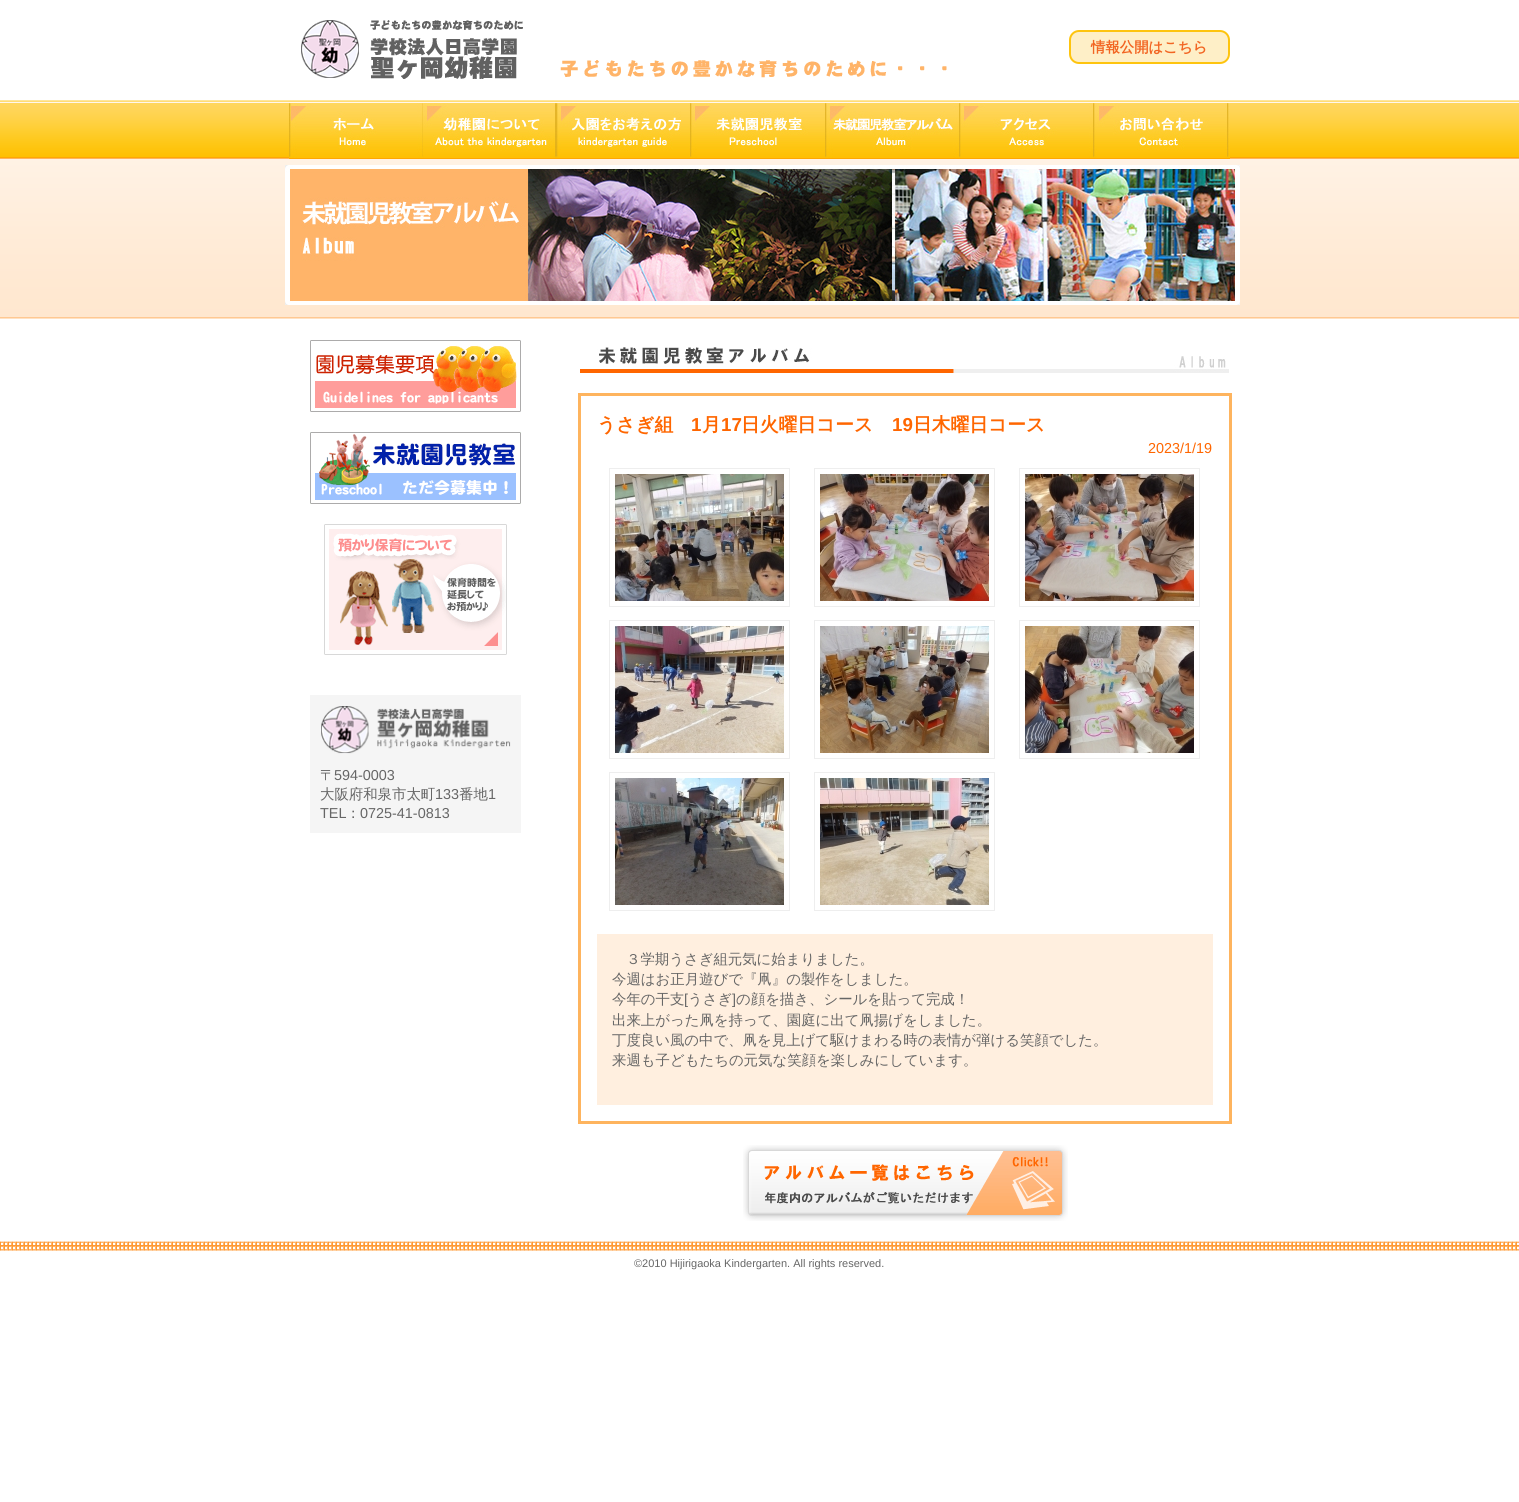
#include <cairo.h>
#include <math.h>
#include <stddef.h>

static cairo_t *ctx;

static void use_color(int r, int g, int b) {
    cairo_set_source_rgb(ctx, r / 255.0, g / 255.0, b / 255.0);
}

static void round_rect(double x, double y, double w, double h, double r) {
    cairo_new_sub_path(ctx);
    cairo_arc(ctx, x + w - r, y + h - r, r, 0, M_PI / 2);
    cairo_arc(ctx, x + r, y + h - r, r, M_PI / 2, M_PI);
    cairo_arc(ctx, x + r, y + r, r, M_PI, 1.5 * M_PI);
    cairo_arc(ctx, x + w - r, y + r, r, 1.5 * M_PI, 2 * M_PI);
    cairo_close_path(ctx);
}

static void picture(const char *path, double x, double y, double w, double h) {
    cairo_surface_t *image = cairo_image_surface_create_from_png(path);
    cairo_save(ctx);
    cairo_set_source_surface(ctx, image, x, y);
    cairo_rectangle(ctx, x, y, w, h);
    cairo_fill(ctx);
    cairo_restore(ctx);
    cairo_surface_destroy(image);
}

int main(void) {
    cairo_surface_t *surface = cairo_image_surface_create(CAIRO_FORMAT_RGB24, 1519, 1502);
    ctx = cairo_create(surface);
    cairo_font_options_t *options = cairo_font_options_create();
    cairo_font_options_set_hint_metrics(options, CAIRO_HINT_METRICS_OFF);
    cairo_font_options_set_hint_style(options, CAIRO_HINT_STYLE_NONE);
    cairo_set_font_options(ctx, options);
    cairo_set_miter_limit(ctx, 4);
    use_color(255, 255, 255);
    cairo_paint(ctx);
    picture("img1.png", 0, 100, 1519, 219);
    picture("img2.png", 301, 20, 222, 59);
    use_color(254, 239, 199);
    round_rect(1070, 31, 159, 32, 9);
    cairo_fill_preserve(ctx);
    use_color(254, 196, 14);
    cairo_stroke(ctx);
    cairo_select_font_face(ctx, "WenQuanYi Zen Hei", CAIRO_FONT_SLANT_NORMAL, CAIRO_FONT_WEIGHT_BOLD);
    cairo_set_font_size(ctx, 14.4);
    use_color(242, 101, 34);
    cairo_move_to(ctx, 1091, 52);
    cairo_show_text(ctx, "情報公開はこちら");
    picture("img3.png", 560, 60, 387, 18);
    picture("img4.png", 289, 103, 133, 56);
    picture("img5.png", 422, 103, 134, 56);
    picture("img6.png", 556, 103, 134, 56);
    picture("img7.png", 690, 103, 135, 56);
    picture("img8.png", 825, 103, 134, 56);
    picture("img9.png", 959, 103, 134, 56);
    picture("img10.png", 1093, 103, 137, 56);
    picture("img11.png", 285, 165, 955, 140);
    picture("img12.png", 310, 340, 211, 72);
    picture("img13.png", 310, 432, 211, 72);
    picture("img14.png", 324, 524, 183, 131);
    use_color(245, 245, 245);
    cairo_rectangle(ctx, 310, 695, 211, 138);
    cairo_fill(ctx);
    picture("img15.png", 321, 706, 190, 48);
    cairo_select_font_face(ctx, "WenQuanYi Zen Hei Medium", CAIRO_FONT_SLANT_NORMAL, CAIRO_FONT_WEIGHT_NORMAL);
    use_color(102, 102, 102);
    cairo_move_to(ctx, 320, 780);
    cairo_show_text(ctx, "〒");
    cairo_select_font_face(ctx, "Liberation Sans", CAIRO_FONT_SLANT_NORMAL, CAIRO_FONT_WEIGHT_NORMAL);
    cairo_move_to(ctx, 334, 780);
    cairo_show_text(ctx, "594-0003");
    cairo_select_font_face(ctx, "WenQuanYi Zen Hei Medium", CAIRO_FONT_SLANT_NORMAL, CAIRO_FONT_WEIGHT_NORMAL);
    cairo_move_to(ctx, 320, 799);
    cairo_show_text(ctx, "大阪府和泉市太町");
    cairo_select_font_face(ctx, "Liberation Sans", CAIRO_FONT_SLANT_NORMAL, CAIRO_FONT_WEIGHT_NORMAL);
    cairo_move_to(ctx, 435, 799);
    cairo_show_text(ctx, "133");
    cairo_select_font_face(ctx, "WenQuanYi Zen Hei Medium", CAIRO_FONT_SLANT_NORMAL, CAIRO_FONT_WEIGHT_NORMAL);
    cairo_move_to(ctx, 459, 799);
    cairo_show_text(ctx, "番地");
    cairo_select_font_face(ctx, "Liberation Sans", CAIRO_FONT_SLANT_NORMAL, CAIRO_FONT_WEIGHT_NORMAL);
    cairo_move_to(ctx, 488, 799);
    cairo_show_text(ctx, "1");
    cairo_move_to(ctx, 320, 818);
    cairo_show_text(ctx, "TEL");
    cairo_select_font_face(ctx, "WenQuanYi Zen Hei Medium", CAIRO_FONT_SLANT_NORMAL, CAIRO_FONT_WEIGHT_NORMAL);
    cairo_move_to(ctx, 346, 818);
    cairo_show_text(ctx, "：");
    cairo_select_font_face(ctx, "Liberation Sans", CAIRO_FONT_SLANT_NORMAL, CAIRO_FONT_WEIGHT_NORMAL);
    cairo_move_to(ctx, 360, 818);
    cairo_show_text(ctx, "0725-41-0813");
    picture("img16.png", 580, 347, 649, 26);
    cairo_rectangle(ctx, 579.5, 394.5, 651, 728);
    use_color(254, 180, 94);
    cairo_set_line_width(ctx, 3);
    cairo_stroke(ctx);
    cairo_select_font_face(ctx, "WenQuanYi Zen Hei", CAIRO_FONT_SLANT_NORMAL, CAIRO_FONT_WEIGHT_BOLD);
    cairo_set_font_size(ctx, 18.75);
    use_color(255, 102, 0);
    cairo_move_to(ctx, 597, 431);
    cairo_show_text(ctx, "うさぎ組");
    cairo_select_font_face(ctx, "Liberation Sans", CAIRO_FONT_SLANT_NORMAL, CAIRO_FONT_WEIGHT_BOLD);
    cairo_move_to(ctx, 691, 431);
    cairo_show_text(ctx, "1");
    cairo_select_font_face(ctx, "WenQuanYi Zen Hei", CAIRO_FONT_SLANT_NORMAL, CAIRO_FONT_WEIGHT_BOLD);
    cairo_move_to(ctx, 702, 431);
    cairo_show_text(ctx, "月");
    cairo_select_font_face(ctx, "Liberation Sans", CAIRO_FONT_SLANT_NORMAL, CAIRO_FONT_WEIGHT_BOLD);
    cairo_move_to(ctx, 721, 431);
    cairo_show_text(ctx, "17");
    cairo_select_font_face(ctx, "WenQuanYi Zen Hei", CAIRO_FONT_SLANT_NORMAL, CAIRO_FONT_WEIGHT_BOLD);
    cairo_move_to(ctx, 741, 431);
    cairo_show_text(ctx, "日火曜日コース");
    cairo_select_font_face(ctx, "Liberation Sans", CAIRO_FONT_SLANT_NORMAL, CAIRO_FONT_WEIGHT_BOLD);
    cairo_move_to(ctx, 892, 431);
    cairo_show_text(ctx, "19");
    cairo_select_font_face(ctx, "WenQuanYi Zen Hei", CAIRO_FONT_SLANT_NORMAL, CAIRO_FONT_WEIGHT_BOLD);
    cairo_move_to(ctx, 913, 431);
    cairo_show_text(ctx, "日木曜日コース");
    cairo_select_font_face(ctx, "Liberation Sans", CAIRO_FONT_SLANT_NORMAL, CAIRO_FONT_WEIGHT_NORMAL);
    cairo_set_font_size(ctx, 14.4);
    cairo_move_to(ctx, 1148, 453);
    cairo_show_text(ctx, "2023/1/19");
    cairo_rectangle(ctx, 609.5, 468.5, 180, 138);
    use_color(238, 238, 238);
    cairo_set_line_width(ctx, 1);
    cairo_stroke(ctx);
    picture("img17.png", 615, 474, 169, 127);
    cairo_rectangle(ctx, 814.5, 468.5, 180, 138);
    cairo_stroke(ctx);
    picture("img18.png", 820, 474, 169, 127);
    cairo_rectangle(ctx, 1019.5, 468.5, 180, 138);
    cairo_stroke(ctx);
    picture("img19.png", 1025, 474, 169, 127);
    cairo_rectangle(ctx, 609.5, 620.5, 180, 138);
    cairo_stroke(ctx);
    picture("img20.png", 615, 626, 169, 127);
    cairo_rectangle(ctx, 814.5, 620.5, 180, 138);
    cairo_stroke(ctx);
    picture("img21.png", 820, 626, 169, 127);
    cairo_rectangle(ctx, 1019.5, 620.5, 180, 138);
    cairo_stroke(ctx);
    picture("img22.png", 1025, 626, 169, 127);
    cairo_rectangle(ctx, 609.5, 772.5, 180, 138);
    cairo_stroke(ctx);
    picture("img23.png", 615, 778, 169, 127);
    cairo_rectangle(ctx, 814.5, 772.5, 180, 138);
    cairo_stroke(ctx);
    picture("img24.png", 820, 778, 169, 127);
    use_color(255, 239, 223);
    cairo_rectangle(ctx, 597, 934, 616, 171);
    cairo_fill(ctx);
    cairo_select_font_face(ctx, "WenQuanYi Zen Hei Medium", CAIRO_FONT_SLANT_NORMAL, CAIRO_FONT_WEIGHT_NORMAL);
    use_color(102, 102, 102);
    cairo_move_to(ctx, 626, 964);
    cairo_show_text(ctx, "３学期うさぎ組元気に始まりました。");
    cairo_move_to(ctx, 612, 984);
    cairo_show_text(ctx, "今週はお正月遊びで『凧』の製作をしました。");
    cairo_move_to(ctx, 612, 1004);
    cairo_show_text(ctx, "今年の干支");
    cairo_select_font_face(ctx, "Liberation Sans", CAIRO_FONT_SLANT_NORMAL, CAIRO_FONT_WEIGHT_NORMAL);
    cairo_move_to(ctx, 684, 1004);
    cairo_show_text(ctx, "[");
    cairo_select_font_face(ctx, "WenQuanYi Zen Hei Medium", CAIRO_FONT_SLANT_NORMAL, CAIRO_FONT_WEIGHT_NORMAL);
    cairo_move_to(ctx, 688, 1004);
    cairo_show_text(ctx, "うさぎ");
    cairo_select_font_face(ctx, "Liberation Sans", CAIRO_FONT_SLANT_NORMAL, CAIRO_FONT_WEIGHT_NORMAL);
    cairo_move_to(ctx, 732, 1004);
    cairo_show_text(ctx, "]");
    cairo_select_font_face(ctx, "WenQuanYi Zen Hei Medium", CAIRO_FONT_SLANT_NORMAL, CAIRO_FONT_WEIGHT_NORMAL);
    cairo_move_to(ctx, 736, 1004);
    cairo_show_text(ctx, "の顔を描き、シールを貼って完成！");
    cairo_move_to(ctx, 612, 1025);
    cairo_show_text(ctx, "出来上がった凧を持って、園庭に出て凧揚げをしました。");
    cairo_move_to(ctx, 612, 1045);
    cairo_show_text(ctx, "丁度良い風の中で、凧を見上げて駆けまわる時の表情が弾ける笑顔でした。");
    cairo_move_to(ctx, 612, 1065);
    cairo_show_text(ctx, "来週も子どもたちの元気な笑顔を楽しみにしています。");
    picture("img25.png", 743, 1145, 325, 76);
    picture("img26.png", 0, 1241, 1519, 10);
    cairo_select_font_face(ctx, "Liberation Sans", CAIRO_FONT_SLANT_NORMAL, CAIRO_FONT_WEIGHT_NORMAL);
    cairo_set_font_size(ctx, 11);
    cairo_move_to(ctx, 634, 1267);
    cairo_show_text(ctx, "©2010 Hijirigaoka Kindergarten. All rights reserved.");
    cairo_surface_write_to_png(surface, "result.png");
    cairo_font_options_destroy(options);
    cairo_destroy(ctx);
    cairo_surface_destroy(surface);
    return 0;
}
